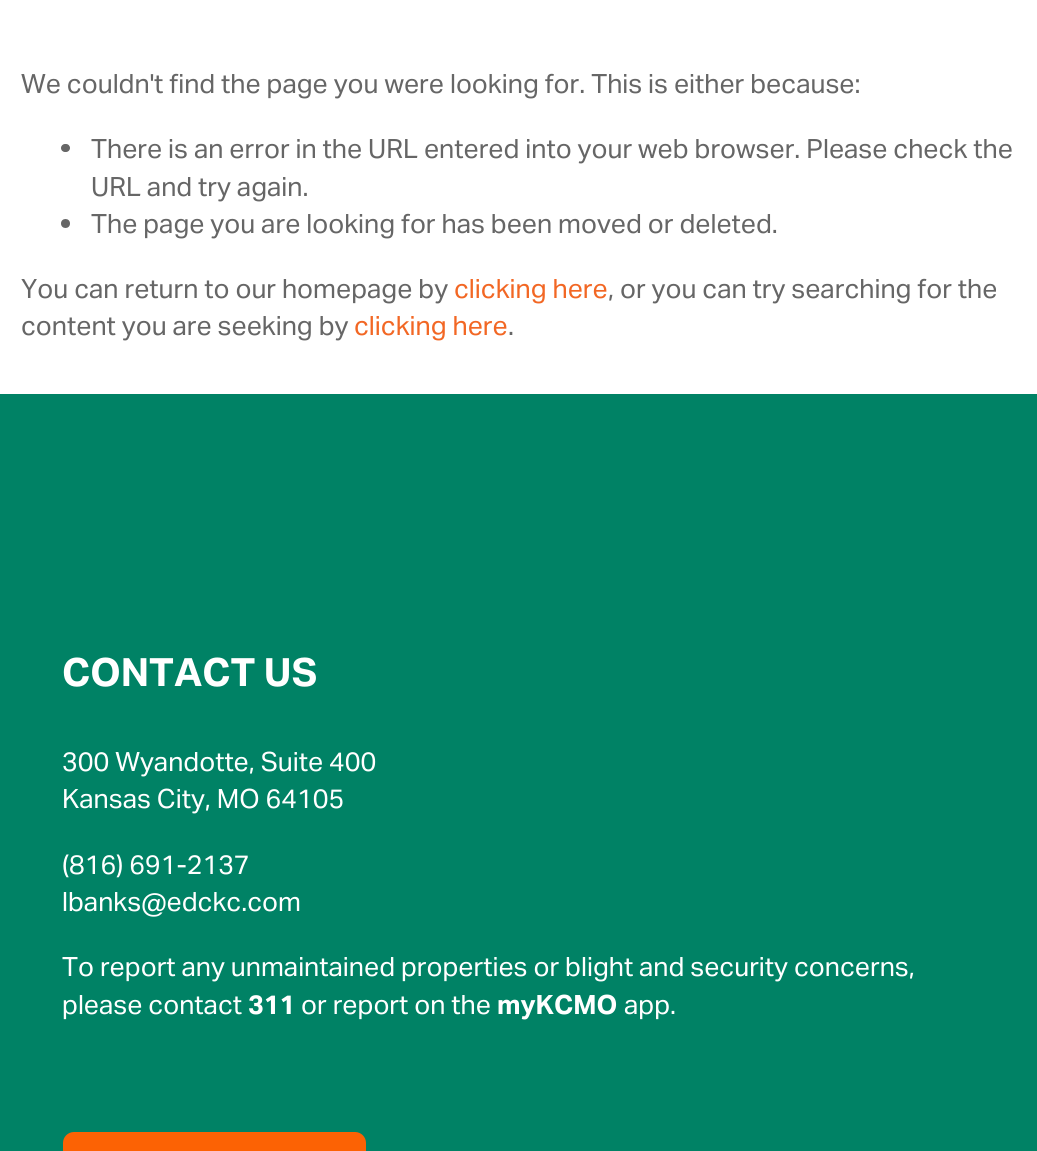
#include <cairo.h>
#include <math.h>
#include <stddef.h>

static cairo_t *ctx;

static void use_color(int r, int g, int b) {
    cairo_set_source_rgb(ctx, r / 255.0, g / 255.0, b / 255.0);
}

static void round_rect(double x, double y, double w, double h, double r) {
    cairo_new_sub_path(ctx);
    cairo_arc(ctx, x + w - r, y + h - r, r, 0, M_PI / 2);
    cairo_arc(ctx, x + r, y + h - r, r, M_PI / 2, M_PI);
    cairo_arc(ctx, x + r, y + r, r, M_PI, 1.5 * M_PI);
    cairo_arc(ctx, x + w - r, y + r, r, 1.5 * M_PI, 2 * M_PI);
    cairo_close_path(ctx);
}

int main(void) {
    cairo_surface_t *surface = cairo_image_surface_create(CAIRO_FORMAT_RGB24, 1037, 1151);
    ctx = cairo_create(surface);
    cairo_font_options_t *options = cairo_font_options_create();
    cairo_font_options_set_hint_metrics(options, CAIRO_HINT_METRICS_OFF);
    cairo_font_options_set_hint_style(options, CAIRO_HINT_STYLE_NONE);
    cairo_set_font_options(ctx, options);
    cairo_set_miter_limit(ctx, 4);
    use_color(255, 255, 255);
    cairo_paint(ctx);
    cairo_select_font_face(ctx, "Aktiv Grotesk", CAIRO_FONT_SLANT_NORMAL, CAIRO_FONT_WEIGHT_NORMAL);
    cairo_set_font_size(ctx, 26.6);
    use_color(102, 102, 102);
    cairo_move_to(ctx, 21, 93);
    cairo_show_text(ctx, "We couldn't find the page you were looking for. This is either because:");
    round_rect(61, 144, 9, 8, 4);
    cairo_fill(ctx);
    cairo_move_to(ctx, 91, 158);
    cairo_show_text(ctx, "There is an error in the URL entered into your web browser. Please check the");
    cairo_move_to(ctx, 91, 196);
    cairo_show_text(ctx, "URL and try again.");
    cairo_new_path(ctx);
    cairo_arc(ctx, 65.5, 223.5, 4.5, 0, 2 * M_PI);
    cairo_fill(ctx);
    cairo_move_to(ctx, 91, 233);
    cairo_show_text(ctx, "The page you are looking for has been moved or deleted.");
    cairo_move_to(ctx, 21, 298);
    cairo_show_text(ctx, "You can return to our homepage by");
    use_color(242, 103, 36);
    cairo_move_to(ctx, 454, 298);
    cairo_show_text(ctx, "clicking here");
    use_color(102, 102, 102);
    cairo_move_to(ctx, 608, 298);
    cairo_show_text(ctx, ", or you can try searching for the");
    cairo_move_to(ctx, 21, 335);
    cairo_show_text(ctx, "content you are seeking by");
    use_color(242, 103, 36);
    cairo_move_to(ctx, 354, 335);
    cairo_show_text(ctx, "clicking here");
    use_color(102, 102, 102);
    cairo_move_to(ctx, 508, 335);
    cairo_show_text(ctx, ".");
    use_color(0, 130, 101);
    cairo_rectangle(ctx, 0, 394, 1037, 757);
    cairo_fill(ctx);
    cairo_select_font_face(ctx, "Aktiv Grotesk", CAIRO_FONT_SLANT_NORMAL, CAIRO_FONT_WEIGHT_BOLD);
    cairo_set_font_size(ctx, 39);
    use_color(255, 255, 255);
    cairo_move_to(ctx, 62, 686);
    cairo_show_text(ctx, "CONTACT US");
    cairo_select_font_face(ctx, "Aktiv Grotesk", CAIRO_FONT_SLANT_NORMAL, CAIRO_FONT_WEIGHT_NORMAL);
    cairo_set_font_size(ctx, 26.6);
    cairo_move_to(ctx, 62, 771);
    cairo_show_text(ctx, "300 Wyandotte, Suite 400");
    cairo_move_to(ctx, 62, 808);
    cairo_show_text(ctx, "Kansas City, MO 64105");
    cairo_move_to(ctx, 62, 874);
    cairo_show_text(ctx, "(816) 691-2137");
    cairo_move_to(ctx, 62, 911);
    cairo_show_text(ctx, "lbanks@edckc.com");
    cairo_move_to(ctx, 62, 976);
    cairo_show_text(ctx, "To report any unmaintained properties or blight and security concerns,");
    cairo_move_to(ctx, 62, 1014);
    cairo_show_text(ctx, "please contact");
    cairo_select_font_face(ctx, "Aktiv Grotesk", CAIRO_FONT_SLANT_NORMAL, CAIRO_FONT_WEIGHT_BOLD);
    cairo_move_to(ctx, 248, 1014);
    cairo_show_text(ctx, "311");
    cairo_select_font_face(ctx, "Aktiv Grotesk", CAIRO_FONT_SLANT_NORMAL, CAIRO_FONT_WEIGHT_NORMAL);
    cairo_move_to(ctx, 301, 1014);
    cairo_show_text(ctx, "or report on the");
    cairo_select_font_face(ctx, "Aktiv Grotesk", CAIRO_FONT_SLANT_NORMAL, CAIRO_FONT_WEIGHT_BOLD);
    cairo_move_to(ctx, 497, 1014);
    cairo_show_text(ctx, "myKCMO");
    cairo_select_font_face(ctx, "Aktiv Grotesk", CAIRO_FONT_SLANT_NORMAL, CAIRO_FONT_WEIGHT_NORMAL);
    cairo_move_to(ctx, 624, 1014);
    cairo_show_text(ctx, "app.");
    use_color(252, 98, 4);
    round_rect(63, 1132, 303, 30, 11);
    cairo_fill(ctx);
    cairo_surface_write_to_png(surface, "result.png");
    cairo_font_options_destroy(options);
    cairo_destroy(ctx);
    cairo_surface_destroy(surface);
    return 0;
}
